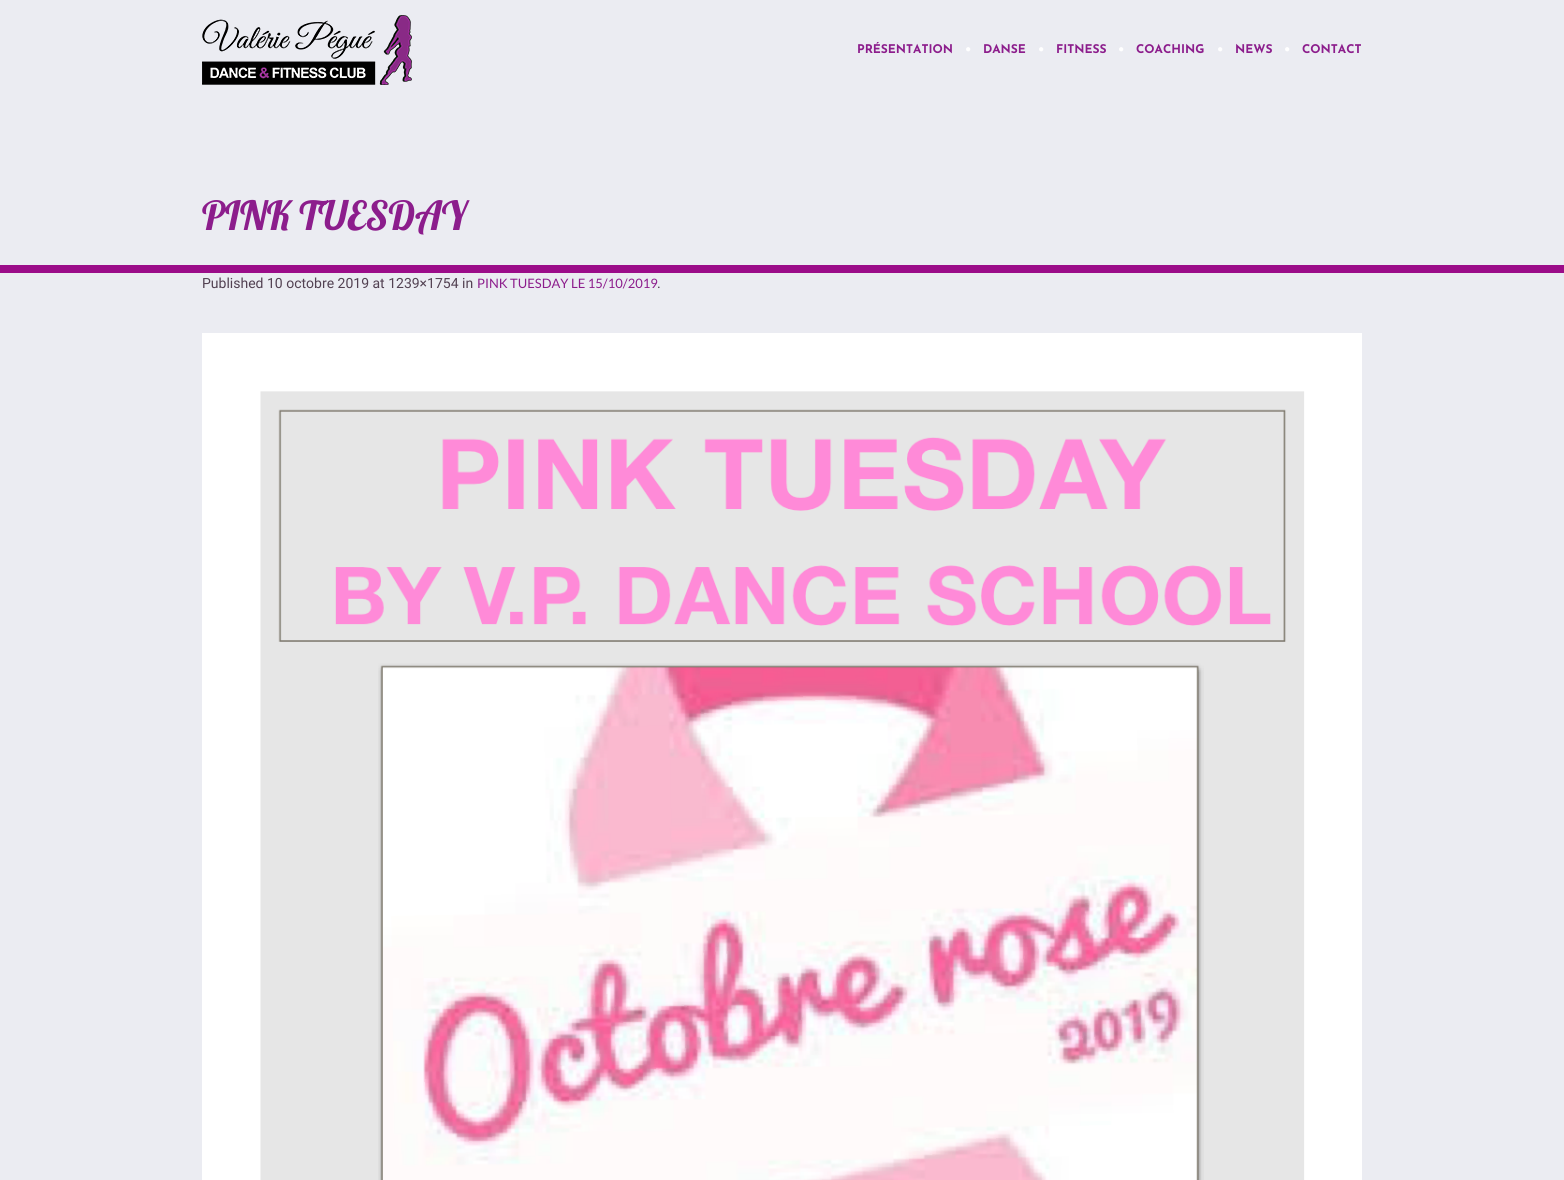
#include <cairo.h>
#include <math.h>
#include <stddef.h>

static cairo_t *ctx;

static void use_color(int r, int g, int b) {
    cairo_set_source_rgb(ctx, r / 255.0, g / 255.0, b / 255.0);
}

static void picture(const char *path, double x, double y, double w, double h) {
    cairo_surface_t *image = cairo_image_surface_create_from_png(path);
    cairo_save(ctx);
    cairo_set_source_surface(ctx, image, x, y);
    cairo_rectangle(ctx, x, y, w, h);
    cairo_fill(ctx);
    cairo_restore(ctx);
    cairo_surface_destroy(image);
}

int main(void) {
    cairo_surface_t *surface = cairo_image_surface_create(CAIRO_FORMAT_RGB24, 1564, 1180);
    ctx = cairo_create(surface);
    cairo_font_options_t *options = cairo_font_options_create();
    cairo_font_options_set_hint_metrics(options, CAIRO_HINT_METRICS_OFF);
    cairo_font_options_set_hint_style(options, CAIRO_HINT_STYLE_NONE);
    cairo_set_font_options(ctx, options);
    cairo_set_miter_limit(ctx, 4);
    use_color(235, 236, 242);
    cairo_paint(ctx);
    picture("img1.png", 202, 15, 210, 70);
    cairo_select_font_face(ctx, "Josefin Sans", CAIRO_FONT_SLANT_NORMAL, CAIRO_FONT_WEIGHT_BOLD);
    cairo_set_font_size(ctx, 12);
    use_color(140, 29, 140);
    cairo_move_to(ctx, 857, 53);
    cairo_show_text(ctx, "PRÉSENTATION");
    picture("img2.png", 966, 47, 5, 5);
    cairo_move_to(ctx, 983, 53);
    cairo_show_text(ctx, "DANSE");
    picture("img2.png", 1039, 47, 5, 5);
    cairo_move_to(ctx, 1056, 53);
    cairo_show_text(ctx, "FITNESS");
    picture("img2.png", 1119, 47, 5, 5);
    cairo_move_to(ctx, 1136, 53);
    cairo_show_text(ctx, "COACHING");
    picture("img2.png", 1218, 47, 5, 5);
    cairo_move_to(ctx, 1235, 53);
    cairo_show_text(ctx, "NEWS");
    picture("img2.png", 1285, 47, 5, 5);
    cairo_move_to(ctx, 1302, 53);
    cairo_show_text(ctx, "CONTACT");
    cairo_select_font_face(ctx, "Lobster", CAIRO_FONT_SLANT_NORMAL, CAIRO_FONT_WEIGHT_NORMAL);
    cairo_set_font_size(ctx, 40);
    cairo_move_to(ctx, 202, 230);
    cairo_show_text(ctx, "PINK TUESDAY");
    use_color(155, 12, 137);
    cairo_rectangle(ctx, 0, 265, 1564, 8);
    cairo_fill(ctx);
    cairo_select_font_face(ctx, "Roboto", CAIRO_FONT_SLANT_NORMAL, CAIRO_FONT_WEIGHT_NORMAL);
    cairo_set_font_size(ctx, 14);
    use_color(82, 65, 82);
    cairo_move_to(ctx, 202, 288);
    cairo_show_text(ctx, "Published 10 octobre 2019 at 1239×1754 in");
    cairo_select_font_face(ctx, "Lato", CAIRO_FONT_SLANT_NORMAL, CAIRO_FONT_WEIGHT_NORMAL);
    cairo_set_font_size(ctx, 13);
    use_color(140, 29, 140);
    cairo_move_to(ctx, 477, 288);
    cairo_show_text(ctx, "PINK TUESDAY LE 15/10/2019");
    cairo_select_font_face(ctx, "Roboto", CAIRO_FONT_SLANT_NORMAL, CAIRO_FONT_WEIGHT_NORMAL);
    cairo_set_font_size(ctx, 14);
    use_color(82, 65, 82);
    cairo_move_to(ctx, 657, 288);
    cairo_show_text(ctx, ".");
    picture("img3.png", 202, 333, 1160, 847);
    cairo_surface_write_to_png(surface, "result.png");
    cairo_font_options_destroy(options);
    cairo_destroy(ctx);
    cairo_surface_destroy(surface);
    return 0;
}
